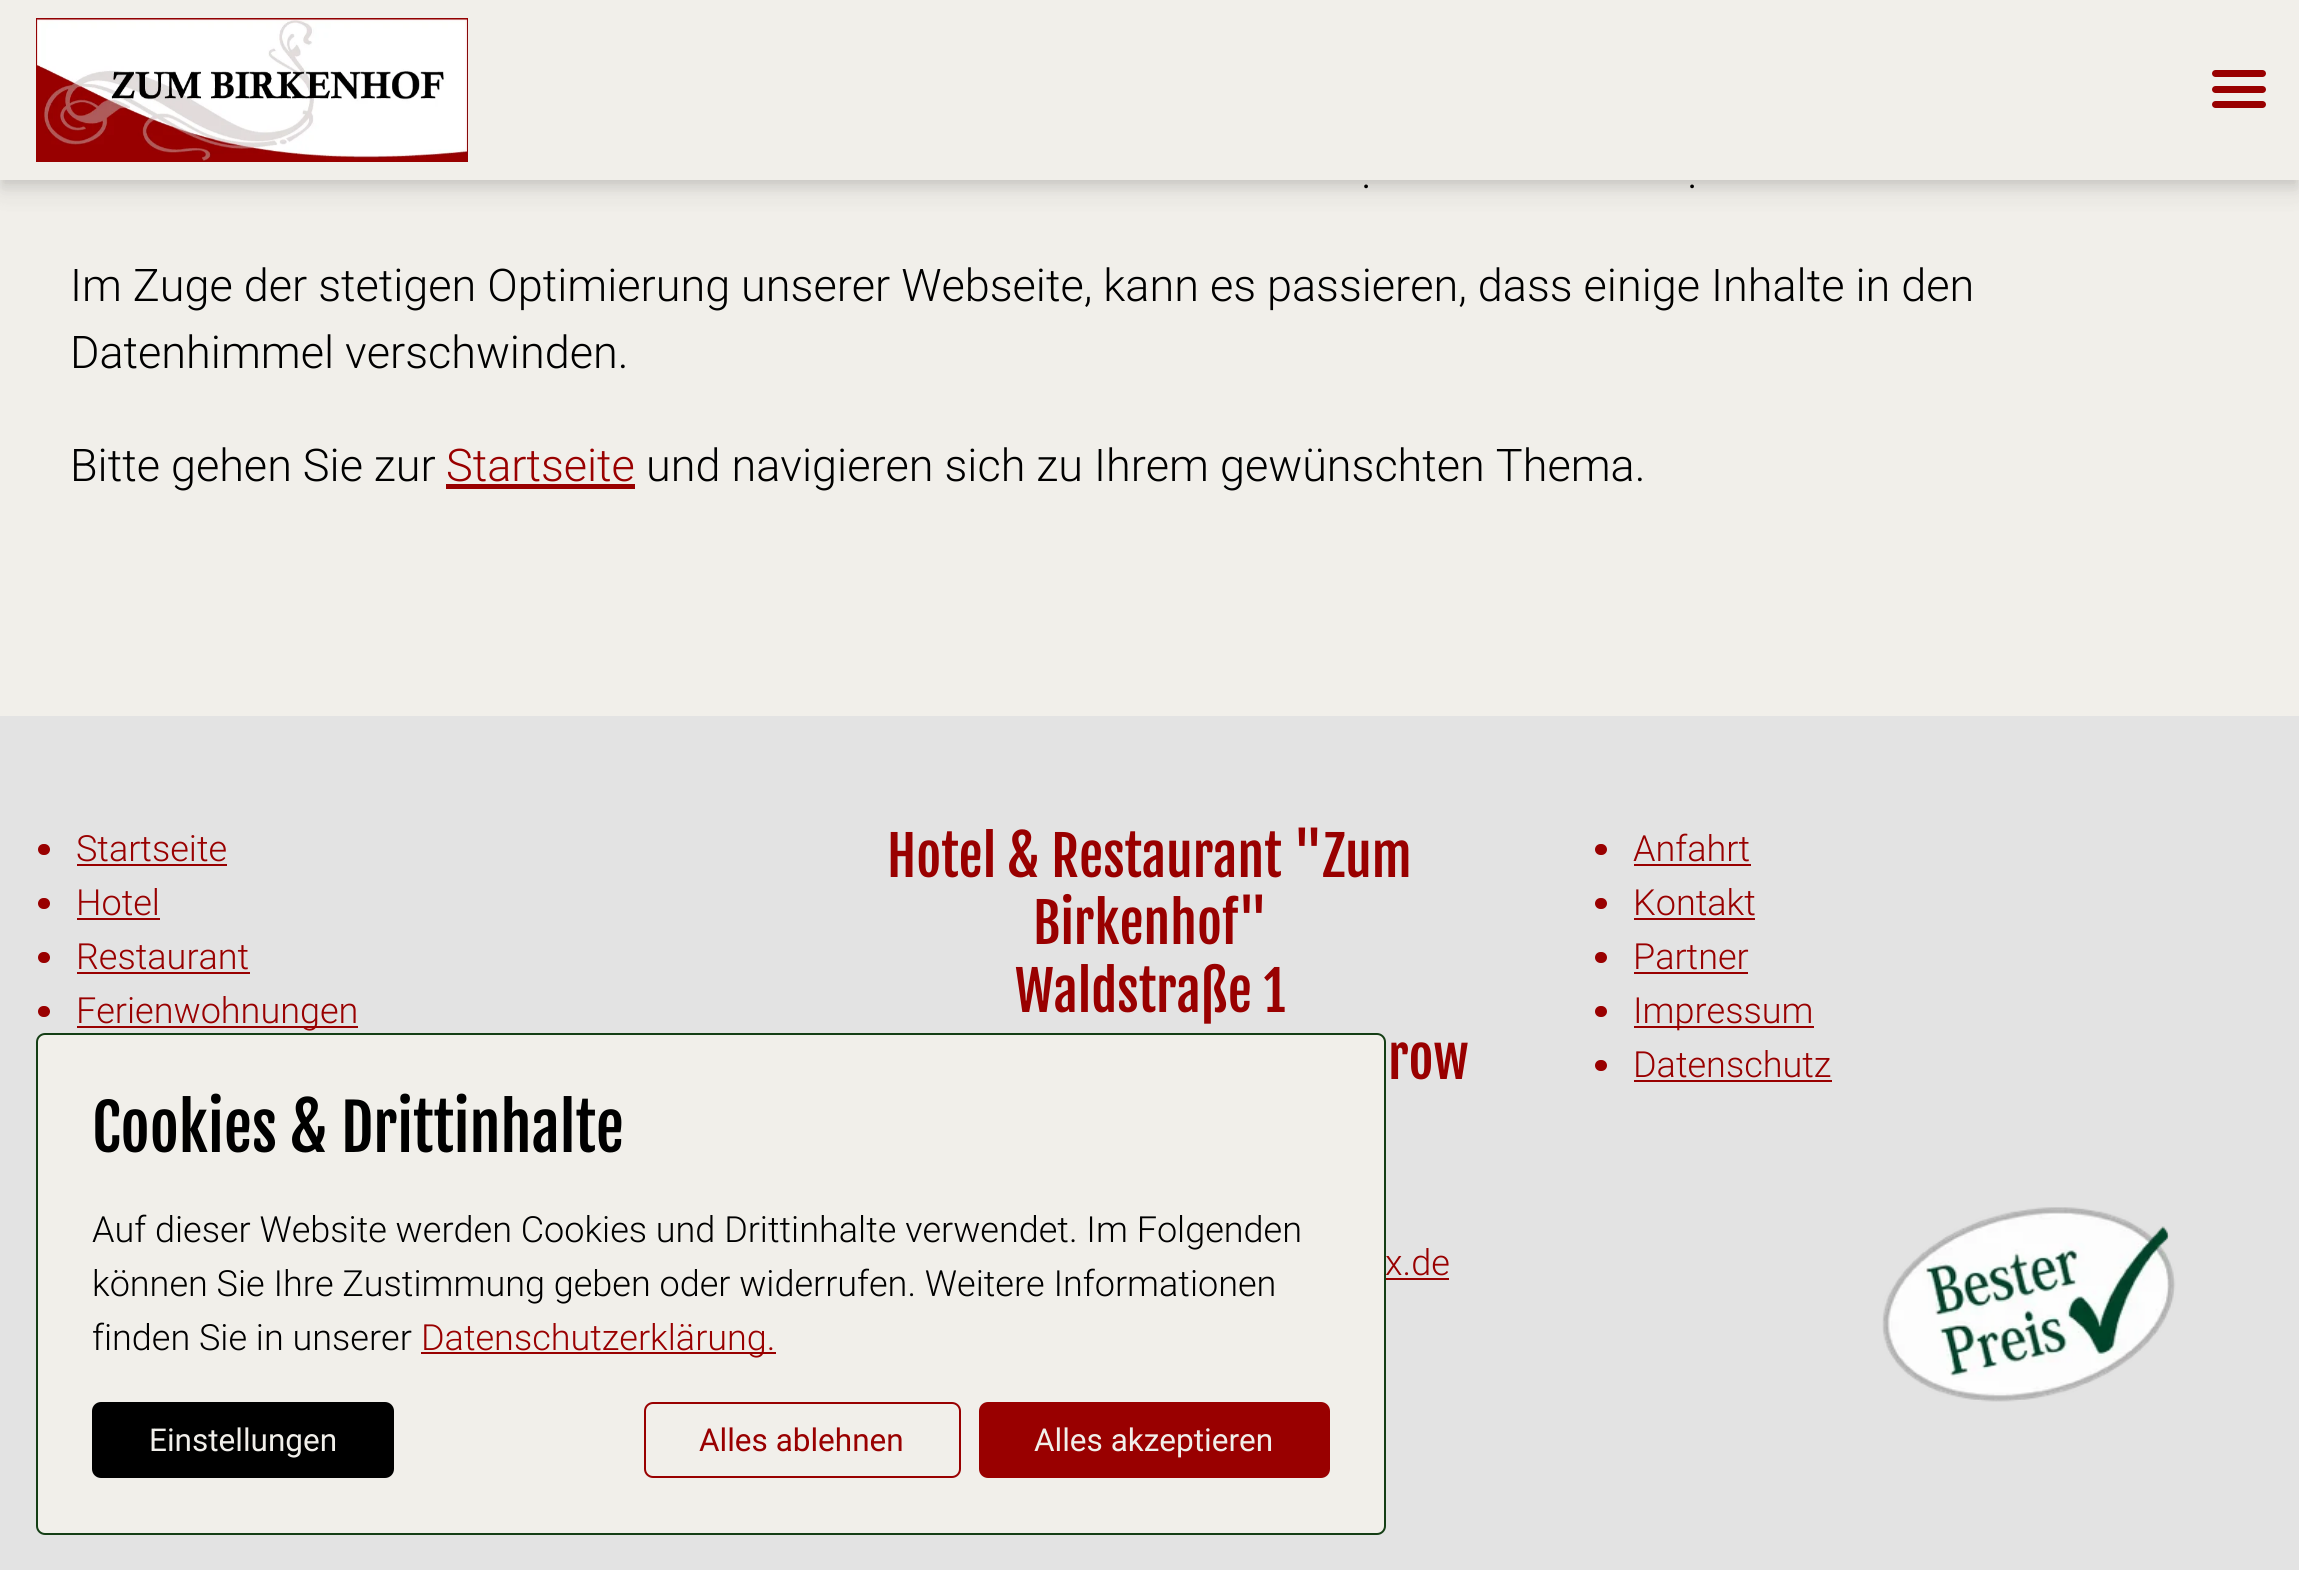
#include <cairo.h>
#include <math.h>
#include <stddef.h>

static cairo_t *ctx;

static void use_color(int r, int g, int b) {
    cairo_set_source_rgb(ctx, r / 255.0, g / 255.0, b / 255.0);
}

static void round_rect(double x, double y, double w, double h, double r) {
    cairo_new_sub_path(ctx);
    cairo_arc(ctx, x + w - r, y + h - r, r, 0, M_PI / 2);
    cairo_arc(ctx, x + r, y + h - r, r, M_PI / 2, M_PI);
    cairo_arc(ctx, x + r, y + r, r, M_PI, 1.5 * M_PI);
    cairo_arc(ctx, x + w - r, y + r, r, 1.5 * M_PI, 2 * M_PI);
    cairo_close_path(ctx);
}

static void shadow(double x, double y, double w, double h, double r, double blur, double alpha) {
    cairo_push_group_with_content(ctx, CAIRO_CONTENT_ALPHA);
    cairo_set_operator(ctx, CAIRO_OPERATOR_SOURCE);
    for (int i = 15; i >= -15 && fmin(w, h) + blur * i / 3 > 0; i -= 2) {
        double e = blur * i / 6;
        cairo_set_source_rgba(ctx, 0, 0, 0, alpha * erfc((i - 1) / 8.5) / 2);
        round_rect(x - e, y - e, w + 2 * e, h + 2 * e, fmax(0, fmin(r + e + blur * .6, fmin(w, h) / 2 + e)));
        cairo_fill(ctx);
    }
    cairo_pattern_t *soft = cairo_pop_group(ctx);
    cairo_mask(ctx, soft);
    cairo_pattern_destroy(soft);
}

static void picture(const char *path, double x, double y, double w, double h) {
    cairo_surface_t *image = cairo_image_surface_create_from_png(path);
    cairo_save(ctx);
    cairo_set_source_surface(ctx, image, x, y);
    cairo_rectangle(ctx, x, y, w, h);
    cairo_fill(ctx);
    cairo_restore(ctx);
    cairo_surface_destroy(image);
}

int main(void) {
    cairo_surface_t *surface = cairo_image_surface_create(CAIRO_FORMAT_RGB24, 2299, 1570);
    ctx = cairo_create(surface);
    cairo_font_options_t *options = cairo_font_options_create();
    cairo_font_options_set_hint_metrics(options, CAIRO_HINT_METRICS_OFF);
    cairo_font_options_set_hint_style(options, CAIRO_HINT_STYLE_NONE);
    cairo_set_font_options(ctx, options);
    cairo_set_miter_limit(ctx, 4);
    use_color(241, 239, 234);
    cairo_paint(ctx);
    use_color(0, 0, 0);
    shadow(2, 9, 2295, 176, 0, 5.5, 0.1);
    shadow(0, 2, 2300, 180, 0, 20, 0.06);
    shadow(0, 14, 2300, 180, 0, 11, 0.05);
    use_color(241, 239, 234);
    cairo_rectangle(ctx, 0, 0, 2299, 180);
    cairo_fill(ctx);
    picture("img1.png", 36, 18, 432, 144);
    use_color(153, 0, 0);
    round_rect(2212, 70, 54, 7, 3.5);
    cairo_fill(ctx);
    round_rect(2212, 86, 54, 7, 3.5);
    cairo_fill(ctx);
    round_rect(2212, 101, 54, 7, 3.5);
    cairo_fill(ctx);
    cairo_select_font_face(ctx, "Roboto Light", CAIRO_FONT_SLANT_NORMAL, CAIRO_FONT_WEIGHT_NORMAL);
    cairo_set_font_size(ctx, 45);
    use_color(0, 0, 0);
    cairo_move_to(ctx, 1361, 188);
    cairo_show_text(ctx, ".");
    cairo_move_to(ctx, 1687, 188);
    cairo_show_text(ctx, ".");
    cairo_move_to(ctx, 70, 301);
    cairo_show_text(ctx, "Im Zuge der stetigen Optimierung unserer Webseite, kann es passieren, dass einige Inhalte in den");
    cairo_move_to(ctx, 70, 368);
    cairo_show_text(ctx, "Datenhimmel verschwinden.");
    cairo_move_to(ctx, 70, 481);
    cairo_show_text(ctx, "Bitte gehen Sie zur");
    use_color(153, 0, 0);
    cairo_move_to(ctx, 446, 481);
    cairo_show_text(ctx, "Startseite");
    cairo_rectangle(ctx, 446, 484, 189, 5);
    cairo_fill(ctx);
    use_color(0, 0, 0);
    cairo_move_to(ctx, 646, 481);
    cairo_show_text(ctx, "und navigieren sich zu Ihrem gewünschten Thema.");
    use_color(227, 227, 227);
    cairo_rectangle(ctx, 0, 716, 2299, 854);
    cairo_fill(ctx);
    use_color(153, 0, 0);
    round_rect(38, 844, 12, 11, 5.5);
    cairo_fill(ctx);
    cairo_set_font_size(ctx, 36);
    cairo_move_to(ctx, 76, 861);
    cairo_show_text(ctx, "Startseite");
    cairo_rectangle(ctx, 77, 864, 150, 2);
    cairo_fill(ctx);
    round_rect(38, 898, 12, 11, 5.5);
    cairo_fill(ctx);
    cairo_move_to(ctx, 76, 915);
    cairo_show_text(ctx, "Hotel");
    cairo_rectangle(ctx, 77, 918, 83, 2);
    cairo_fill(ctx);
    round_rect(38, 952, 12, 11, 5.5);
    cairo_fill(ctx);
    cairo_move_to(ctx, 76, 969);
    cairo_show_text(ctx, "Restaurant");
    cairo_rectangle(ctx, 77, 972, 173, 2);
    cairo_fill(ctx);
    round_rect(38, 1006, 12, 11, 5.5);
    cairo_fill(ctx);
    cairo_rectangle(ctx, 77, 1026, 281, 2);
    cairo_fill(ctx);
    cairo_move_to(ctx, 76, 1023);
    cairo_show_text(ctx, "Ferienwohnungen");
    cairo_select_font_face(ctx, "Fjalla One", CAIRO_FONT_SLANT_NORMAL, CAIRO_FONT_WEIGHT_NORMAL);
    cairo_set_font_size(ctx, 54);
    cairo_move_to(ctx, 887, 877);
    cairo_show_text(ctx, "Hotel & Restaurant \"Zum");
    cairo_move_to(ctx, 1033, 944);
    cairo_show_text(ctx, "Birkenhof\"");
    cairo_move_to(ctx, 1015, 1012);
    cairo_show_text(ctx, "Waldstraße 1");
    cairo_move_to(ctx, 1388, 1079);
    cairo_show_text(ctx, "row");
    cairo_select_font_face(ctx, "Roboto Light", CAIRO_FONT_SLANT_NORMAL, CAIRO_FONT_WEIGHT_NORMAL);
    cairo_set_font_size(ctx, 36);
    cairo_move_to(ctx, 1385, 1275);
    cairo_show_text(ctx, "x.de");
    cairo_rectangle(ctx, 1386, 1278, 63, 2);
    cairo_fill(ctx);
    round_rect(1595, 844, 12, 11, 5.5);
    cairo_fill(ctx);
    cairo_move_to(ctx, 1633, 861);
    cairo_show_text(ctx, "Anfahrt");
    cairo_rectangle(ctx, 1634, 864, 117, 2);
    cairo_fill(ctx);
    round_rect(1595, 898, 12, 11, 5.5);
    cairo_fill(ctx);
    cairo_move_to(ctx, 1633, 915);
    cairo_show_text(ctx, "Kontakt");
    cairo_rectangle(ctx, 1634, 918, 121, 2);
    cairo_fill(ctx);
    round_rect(1595, 952, 12, 11, 5.5);
    cairo_fill(ctx);
    cairo_move_to(ctx, 1633, 969);
    cairo_show_text(ctx, "Partner");
    cairo_rectangle(ctx, 1634, 972, 114, 2);
    cairo_fill(ctx);
    round_rect(1595, 1006, 12, 11, 5.5);
    cairo_fill(ctx);
    cairo_rectangle(ctx, 1634, 1026, 180, 2);
    cairo_fill(ctx);
    cairo_move_to(ctx, 1633, 1023);
    cairo_show_text(ctx, "Impressum");
    round_rect(1595, 1060, 12, 11, 5.5);
    cairo_fill(ctx);
    cairo_move_to(ctx, 1633, 1077);
    cairo_show_text(ctx, "Datenschutz");
    cairo_rectangle(ctx, 1634, 1080, 198, 2);
    cairo_fill(ctx);
    picture("img2.png", 1882, 1207, 294, 195);
    use_color(241, 239, 234);
    round_rect(37, 1034, 1348, 500, 8);
    cairo_fill_preserve(ctx);
    use_color(20, 62, 21);
    cairo_stroke(ctx);
    cairo_select_font_face(ctx, "Fjalla One", CAIRO_FONT_SLANT_NORMAL, CAIRO_FONT_WEIGHT_NORMAL);
    cairo_set_font_size(ctx, 63);
    use_color(0, 0, 0);
    cairo_move_to(ctx, 92, 1152);
    cairo_show_text(ctx, "Cookies & Drittinhalte");
    cairo_select_font_face(ctx, "Roboto Light", CAIRO_FONT_SLANT_NORMAL, CAIRO_FONT_WEIGHT_NORMAL);
    cairo_set_font_size(ctx, 36);
    cairo_move_to(ctx, 92, 1242);
    cairo_show_text(ctx, "Auf dieser Website werden Cookies und Drittinhalte verwendet. Im Folgenden");
    cairo_move_to(ctx, 92, 1296);
    cairo_show_text(ctx, "können Sie Ihre Zustimmung geben oder widerrufen. Weitere Informationen");
    cairo_move_to(ctx, 92, 1350);
    cairo_show_text(ctx, "finden Sie in unserer");
    use_color(153, 0, 0);
    cairo_rectangle(ctx, 421, 1352, 355, 2);
    cairo_fill(ctx);
    cairo_move_to(ctx, 421, 1350);
    cairo_show_text(ctx, "Datenschutzerklärung.");
    use_color(0, 0, 0);
    round_rect(93, 1403, 300, 74, 8);
    cairo_fill_preserve(ctx);
    cairo_stroke(ctx);
    cairo_select_font_face(ctx, "Roboto", CAIRO_FONT_SLANT_NORMAL, CAIRO_FONT_WEIGHT_NORMAL);
    cairo_set_font_size(ctx, 31.5);
    use_color(241, 239, 234);
    cairo_move_to(ctx, 149, 1451);
    cairo_show_text(ctx, "Einstellungen");
    round_rect(645, 1403, 315, 74, 8);
    use_color(153, 0, 0);
    cairo_stroke(ctx);
    cairo_move_to(ctx, 699, 1451);
    cairo_show_text(ctx, "Alles ablehnen");
    round_rect(980, 1403, 349, 74, 8);
    cairo_fill_preserve(ctx);
    cairo_stroke(ctx);
    use_color(241, 239, 234);
    cairo_move_to(ctx, 1034, 1451);
    cairo_show_text(ctx, "Alles akzeptieren");
    cairo_surface_write_to_png(surface, "result.png");
    cairo_font_options_destroy(options);
    cairo_destroy(ctx);
    cairo_surface_destroy(surface);
    return 0;
}
